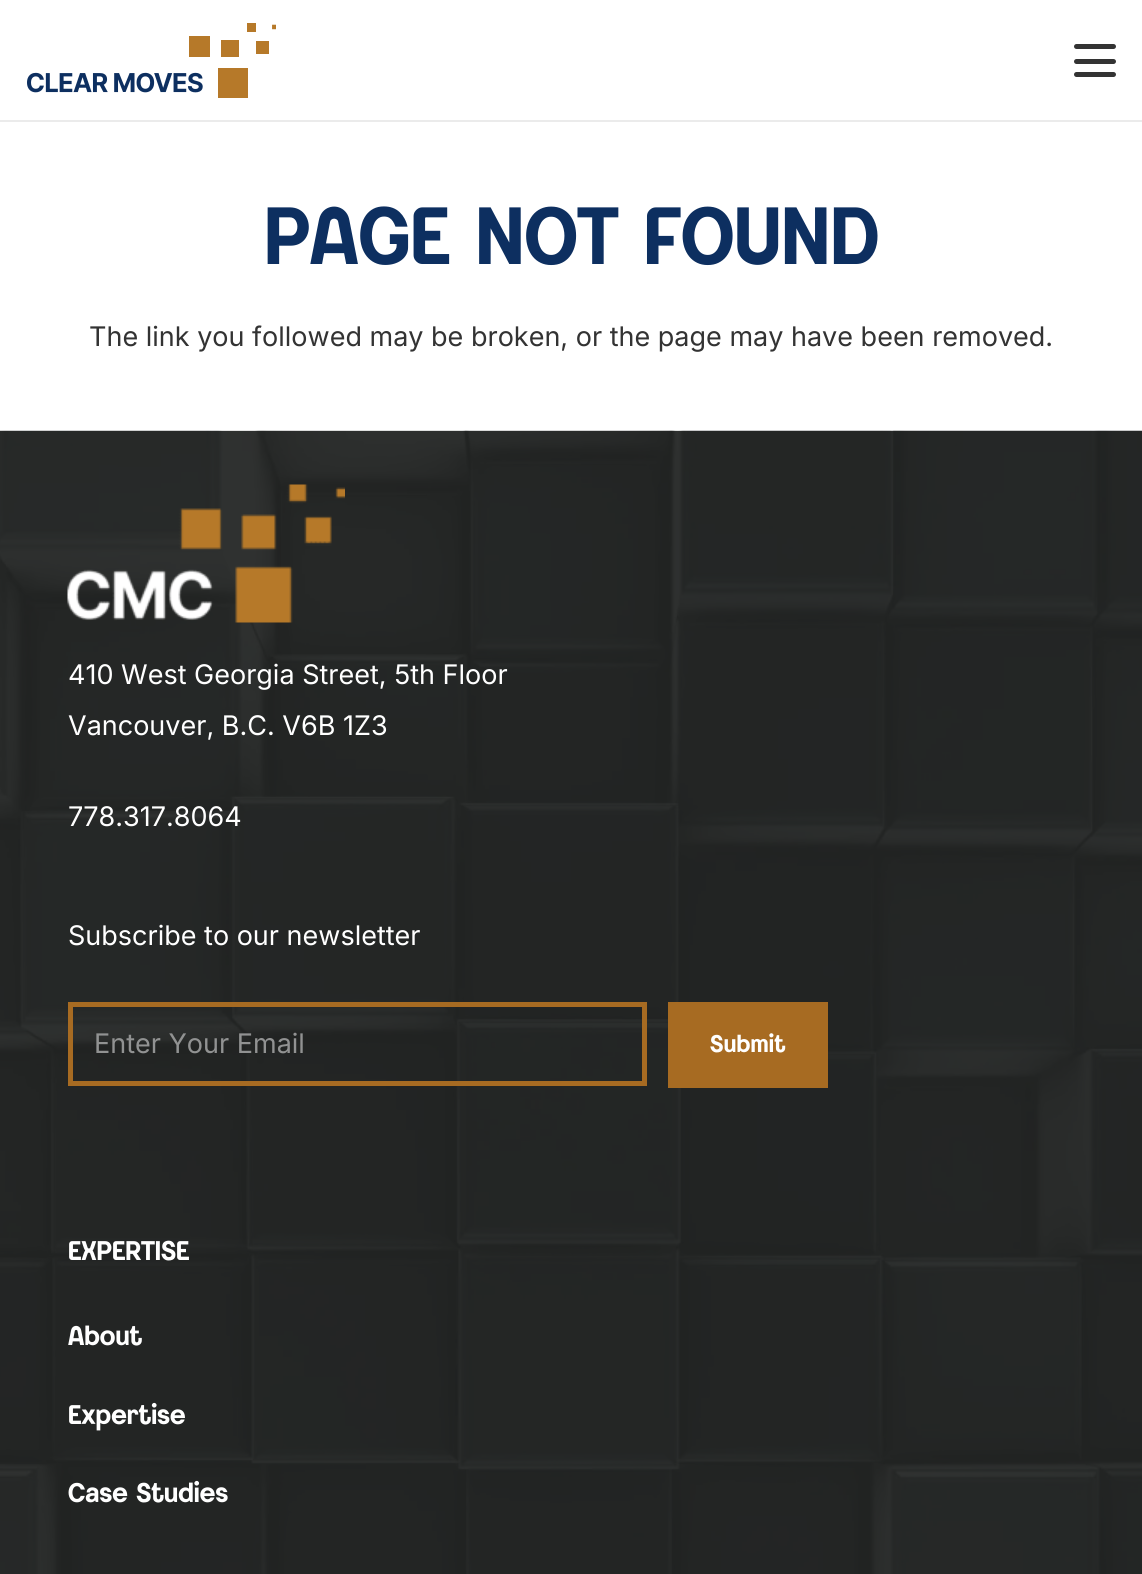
#include <cairo.h>
#include <math.h>
#include <stddef.h>

static cairo_t *ctx;

static void use_color(int r, int g, int b) {
    cairo_set_source_rgb(ctx, r / 255.0, g / 255.0, b / 255.0);
}

static void spaced_text(double x, double y, const char *s, double letter, double word) {
    cairo_move_to(ctx, x, y);
    while (*s) {
        char ch[5] = {0};
        int n = 0;
        do ch[n++] = *s++; while ((*s & 0xC0) == 0x80);
        cairo_show_text(ctx, ch);
        cairo_rel_move_to(ctx, letter + word * (*ch == ' '), 0);
    }
}

static void round_rect(double x, double y, double w, double h, double r) {
    cairo_new_sub_path(ctx);
    cairo_arc(ctx, x + w - r, y + h - r, r, 0, M_PI / 2);
    cairo_arc(ctx, x + r, y + h - r, r, M_PI / 2, M_PI);
    cairo_arc(ctx, x + r, y + r, r, M_PI, 1.5 * M_PI);
    cairo_arc(ctx, x + w - r, y + r, r, 1.5 * M_PI, 2 * M_PI);
    cairo_close_path(ctx);
}

static void picture(const char *path, double x, double y, double w, double h) {
    cairo_surface_t *image = cairo_image_surface_create_from_png(path);
    cairo_save(ctx);
    cairo_set_source_surface(ctx, image, x, y);
    cairo_rectangle(ctx, x, y, w, h);
    cairo_fill(ctx);
    cairo_restore(ctx);
    cairo_surface_destroy(image);
}

int main(void) {
    cairo_surface_t *surface = cairo_image_surface_create(CAIRO_FORMAT_RGB24, 1142, 1574);
    ctx = cairo_create(surface);
    cairo_font_options_t *options = cairo_font_options_create();
    cairo_font_options_set_hint_metrics(options, CAIRO_HINT_METRICS_OFF);
    cairo_font_options_set_hint_style(options, CAIRO_HINT_STYLE_NONE);
    cairo_set_font_options(ctx, options);
    cairo_set_miter_limit(ctx, 4);
    use_color(255, 255, 255);
    cairo_paint(ctx);
    use_color(235, 235, 235);
    cairo_rectangle(ctx, 0, 120, 1142, 2);
    cairo_fill(ctx);
    picture("img1.png", 27, 23, 249, 75);
    use_color(51, 51, 51);
    round_rect(1074, 59, 42, 5, 2.5);
    cairo_fill(ctx);
    round_rect(1074, 44, 42, 5, 2.5);
    cairo_fill(ctx);
    round_rect(1074, 72, 42, 5, 2.5);
    cairo_fill(ctx);
    cairo_select_font_face(ctx, "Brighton", CAIRO_FONT_SLANT_NORMAL, CAIRO_FONT_WEIGHT_NORMAL);
    cairo_set_font_size(ctx, 81);
    use_color(13, 47, 96);
    cairo_move_to(ctx, 264, 264);
    cairo_show_text(ctx, "PAGE NOT FOUND");
    cairo_select_font_face(ctx, "Inter", CAIRO_FONT_SLANT_NORMAL, CAIRO_FONT_WEIGHT_NORMAL);
    cairo_set_font_size(ctx, 27);
    use_color(51, 51, 51);
    cairo_move_to(ctx, 89, 346);
    cairo_show_text(ctx, "The link you followed may be broken, or the page may have been removed.");
    picture("img2.png", 0, 430, 1142, 1144);
    picture("img3.png", 67, 484, 278, 139);
    use_color(255, 255, 255);
    cairo_move_to(ctx, 68, 684);
    cairo_show_text(ctx, "410 West Georgia Street, 5th Floor");
    cairo_move_to(ctx, 68, 735);
    cairo_show_text(ctx, "Vancouver, B.C. V6B 1Z3");
    cairo_move_to(ctx, 68, 826);
    cairo_show_text(ctx, "778.317.8064");
    cairo_move_to(ctx, 68, 945);
    cairo_show_text(ctx, "Subscribe to our newsletter");
    cairo_rectangle(ctx, 70.5, 1004.5, 574, 79);
    use_color(167, 107, 34);
    cairo_set_line_width(ctx, 5);
    cairo_stroke(ctx);
    use_color(145, 146, 146);
    cairo_move_to(ctx, 94, 1053);
    cairo_show_text(ctx, "Enter Your Email");
    use_color(167, 107, 34);
    cairo_rectangle(ctx, 668, 1002, 160, 86);
    cairo_fill(ctx);
    cairo_select_font_face(ctx, "Brighton", CAIRO_FONT_SLANT_NORMAL, CAIRO_FONT_WEIGHT_NORMAL);
    cairo_set_font_size(ctx, 24);
    use_color(255, 255, 255);
    spaced_text(710, 1052, "Submit", 0.25, 0);
    cairo_set_font_size(ctx, 27);
    cairo_move_to(ctx, 68, 1260);
    cairo_show_text(ctx, "EXPERTISE");
    cairo_move_to(ctx, 68, 1345);
    cairo_show_text(ctx, "About");
    cairo_move_to(ctx, 68, 1424);
    cairo_show_text(ctx, "Expertise");
    cairo_move_to(ctx, 68, 1502);
    cairo_show_text(ctx, "Case Studies");
    cairo_surface_write_to_png(surface, "result.png");
    cairo_font_options_destroy(options);
    cairo_destroy(ctx);
    cairo_surface_destroy(surface);
    return 0;
}
